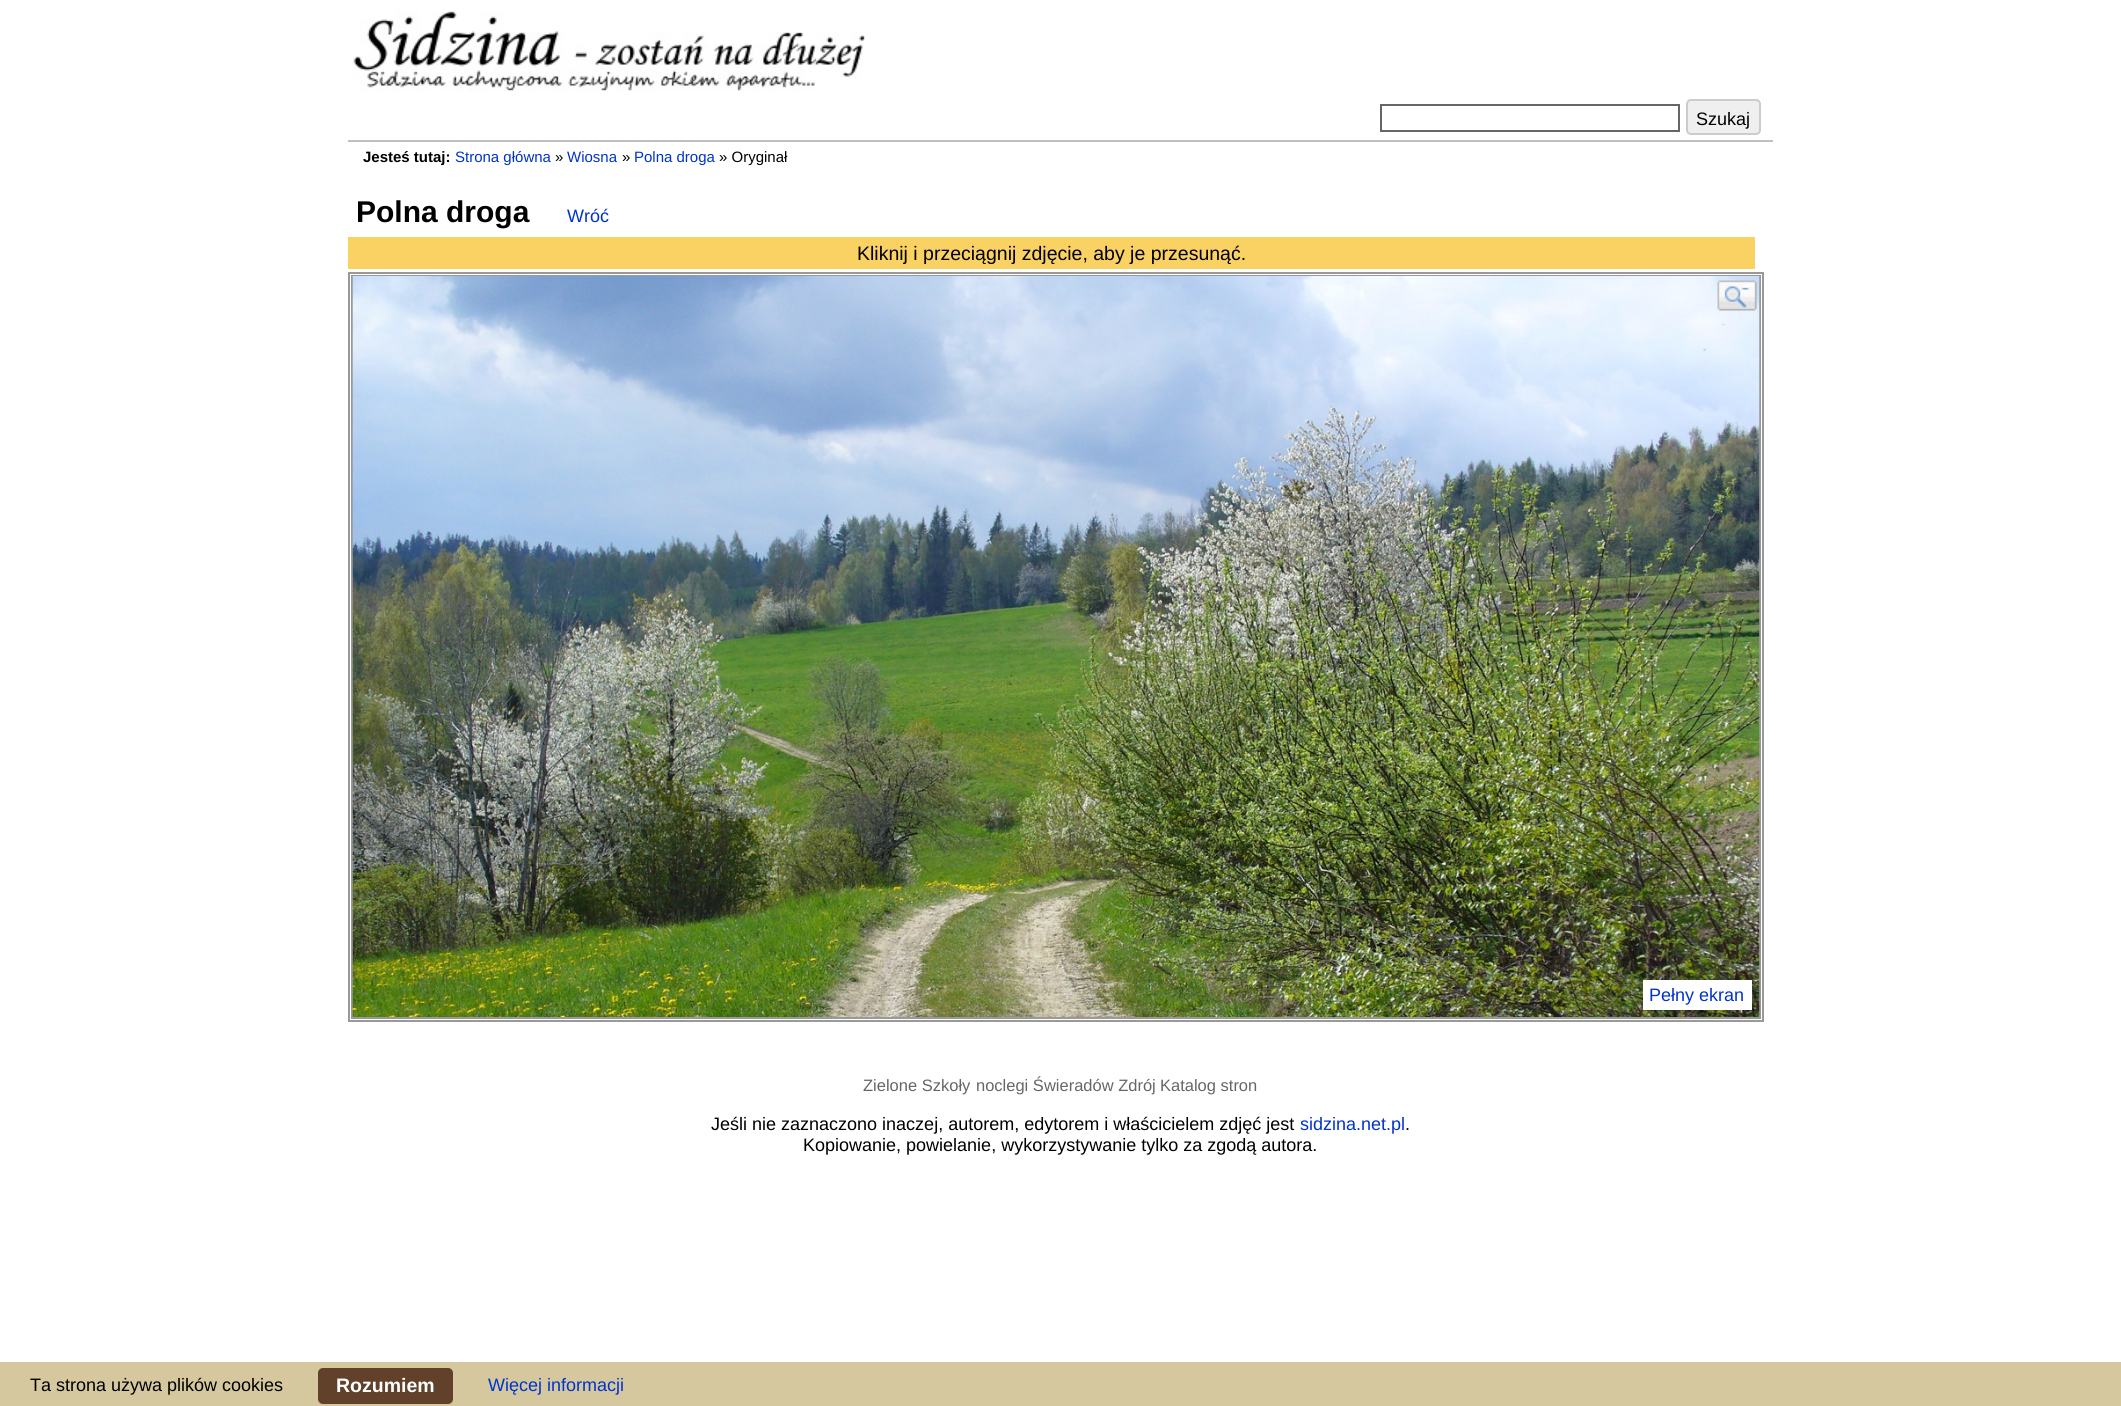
#include <cairo.h>
#include <math.h>
#include <stddef.h>

static cairo_t *ctx;

static void use_color(int r, int g, int b) {
    cairo_set_source_rgb(ctx, r / 255.0, g / 255.0, b / 255.0);
}

static void round_rect(double x, double y, double w, double h, double r) {
    cairo_new_sub_path(ctx);
    cairo_arc(ctx, x + w - r, y + h - r, r, 0, M_PI / 2);
    cairo_arc(ctx, x + r, y + h - r, r, M_PI / 2, M_PI);
    cairo_arc(ctx, x + r, y + r, r, M_PI, 1.5 * M_PI);
    cairo_arc(ctx, x + w - r, y + r, r, 1.5 * M_PI, 2 * M_PI);
    cairo_close_path(ctx);
}

static void picture(const char *path, double x, double y, double w, double h) {
    cairo_surface_t *image = cairo_image_surface_create_from_png(path);
    cairo_save(ctx);
    cairo_set_source_surface(ctx, image, x, y);
    cairo_rectangle(ctx, x, y, w, h);
    cairo_fill(ctx);
    cairo_restore(ctx);
    cairo_surface_destroy(image);
}

int main(void) {
    cairo_surface_t *surface = cairo_image_surface_create(CAIRO_FORMAT_RGB24, 2121, 1406);
    ctx = cairo_create(surface);
    cairo_font_options_t *options = cairo_font_options_create();
    cairo_font_options_set_hint_metrics(options, CAIRO_HINT_METRICS_OFF);
    cairo_font_options_set_hint_style(options, CAIRO_HINT_STYLE_NONE);
    cairo_set_font_options(ctx, options);
    cairo_set_miter_limit(ctx, 4);
    use_color(255, 255, 255);
    cairo_paint(ctx);
    use_color(192, 192, 192);
    cairo_rectangle(ctx, 348, 140, 1425, 2);
    cairo_fill(ctx);
    picture("img1.png", 353, 11, 512, 80);
    cairo_rectangle(ctx, 1381, 105, 298, 26);
    use_color(102, 102, 102);
    cairo_stroke(ctx);
    use_color(239, 239, 239);
    round_rect(1687, 100, 73, 34, 4);
    cairo_fill_preserve(ctx);
    use_color(204, 204, 204);
    cairo_stroke(ctx);
    cairo_select_font_face(ctx, "Liberation Sans", CAIRO_FONT_SLANT_NORMAL, CAIRO_FONT_WEIGHT_NORMAL);
    cairo_set_font_size(ctx, 18);
    use_color(0, 0, 0);
    cairo_move_to(ctx, 1696, 125);
    cairo_show_text(ctx, "Szukaj");
    cairo_select_font_face(ctx, "Liberation Sans", CAIRO_FONT_SLANT_NORMAL, CAIRO_FONT_WEIGHT_BOLD);
    cairo_set_font_size(ctx, 15);
    cairo_move_to(ctx, 363, 162);
    cairo_show_text(ctx, "Jesteś tutaj:");
    cairo_select_font_face(ctx, "Liberation Sans", CAIRO_FONT_SLANT_NORMAL, CAIRO_FONT_WEIGHT_NORMAL);
    use_color(0, 51, 204);
    cairo_move_to(ctx, 455, 162);
    cairo_show_text(ctx, "Strona główna");
    use_color(0, 0, 0);
    cairo_move_to(ctx, 555, 162);
    cairo_show_text(ctx, "»");
    use_color(0, 51, 204);
    cairo_move_to(ctx, 567, 162);
    cairo_show_text(ctx, "Wiosna");
    use_color(0, 0, 0);
    cairo_move_to(ctx, 622, 162);
    cairo_show_text(ctx, "»");
    use_color(0, 51, 204);
    cairo_move_to(ctx, 634, 162);
    cairo_show_text(ctx, "Polna droga");
    use_color(0, 0, 0);
    cairo_move_to(ctx, 719, 162);
    cairo_show_text(ctx, "» Oryginał");
    cairo_select_font_face(ctx, "Liberation Sans", CAIRO_FONT_SLANT_NORMAL, CAIRO_FONT_WEIGHT_BOLD);
    cairo_set_font_size(ctx, 30);
    cairo_move_to(ctx, 356, 222);
    cairo_show_text(ctx, "Polna droga");
    cairo_select_font_face(ctx, "Liberation Sans", CAIRO_FONT_SLANT_NORMAL, CAIRO_FONT_WEIGHT_NORMAL);
    cairo_set_font_size(ctx, 18);
    use_color(0, 51, 204);
    cairo_move_to(ctx, 567, 222);
    cairo_show_text(ctx, "Wróć");
    use_color(250, 209, 99);
    cairo_rectangle(ctx, 348, 237, 1407, 32);
    cairo_fill(ctx);
    cairo_set_font_size(ctx, 19.5);
    use_color(0, 0, 0);
    cairo_move_to(ctx, 857, 260);
    cairo_show_text(ctx, "Kliknij i przeciągnij zdjęcie, aby je przesunąć.");
    cairo_rectangle(ctx, 349, 273, 1414, 748);
    use_color(153, 153, 153);
    cairo_stroke(ctx);
    cairo_rectangle(ctx, 352, 276, 1408, 742);
    cairo_stroke(ctx);
    picture("img2.png", 352, 276, 1408, 741);
    picture("img3.png", 1717, 280, 40, 31);
    use_color(255, 255, 255);
    cairo_rectangle(ctx, 1643, 980, 109, 30);
    cairo_fill(ctx);
    cairo_set_font_size(ctx, 18);
    use_color(0, 51, 204);
    cairo_move_to(ctx, 1649, 1001);
    cairo_show_text(ctx, "Pełny ekran");
    cairo_set_font_size(ctx, 16.5);
    use_color(102, 102, 102);
    cairo_move_to(ctx, 863, 1091);
    cairo_show_text(ctx, "Zielone Szkoły");
    cairo_move_to(ctx, 976, 1091);
    cairo_show_text(ctx, "noclegi Świeradów Zdrój");
    cairo_move_to(ctx, 1160, 1091);
    cairo_show_text(ctx, "Katalog stron");
    cairo_set_font_size(ctx, 18);
    use_color(0, 0, 0);
    cairo_move_to(ctx, 711, 1130);
    cairo_show_text(ctx, "Jeśli nie zaznaczono inaczej, autorem, edytorem i właścicielem zdjęć jest");
    use_color(0, 51, 204);
    cairo_move_to(ctx, 1300, 1130);
    cairo_show_text(ctx, "sidzina.net.pl");
    use_color(0, 0, 0);
    cairo_move_to(ctx, 1405, 1130);
    cairo_show_text(ctx, ".");
    cairo_move_to(ctx, 803, 1151);
    cairo_show_text(ctx, "Kopiowanie, powielanie, wykorzystywanie tylko za zgodą autora.");
    use_color(213, 199, 158);
    cairo_rectangle(ctx, 0, 1362, 2121, 44);
    cairo_fill(ctx);
    use_color(0, 0, 0);
    cairo_move_to(ctx, 30, 1391);
    cairo_show_text(ctx, "Ta strona używa plików cookies");
    use_color(97, 65, 41);
    round_rect(318, 1368, 135, 36, 5);
    cairo_fill(ctx);
    cairo_select_font_face(ctx, "Liberation Sans", CAIRO_FONT_SLANT_NORMAL, CAIRO_FONT_WEIGHT_BOLD);
    cairo_set_font_size(ctx, 19.5);
    use_color(255, 255, 255);
    cairo_move_to(ctx, 336, 1392);
    cairo_show_text(ctx, "Rozumiem");
    cairo_select_font_face(ctx, "Liberation Sans", CAIRO_FONT_SLANT_NORMAL, CAIRO_FONT_WEIGHT_NORMAL);
    cairo_set_font_size(ctx, 18);
    use_color(0, 51, 204);
    cairo_move_to(ctx, 488, 1391);
    cairo_show_text(ctx, "Więcej informacji");
    cairo_surface_write_to_png(surface, "result.png");
    cairo_font_options_destroy(options);
    cairo_destroy(ctx);
    cairo_surface_destroy(surface);
    return 0;
}
